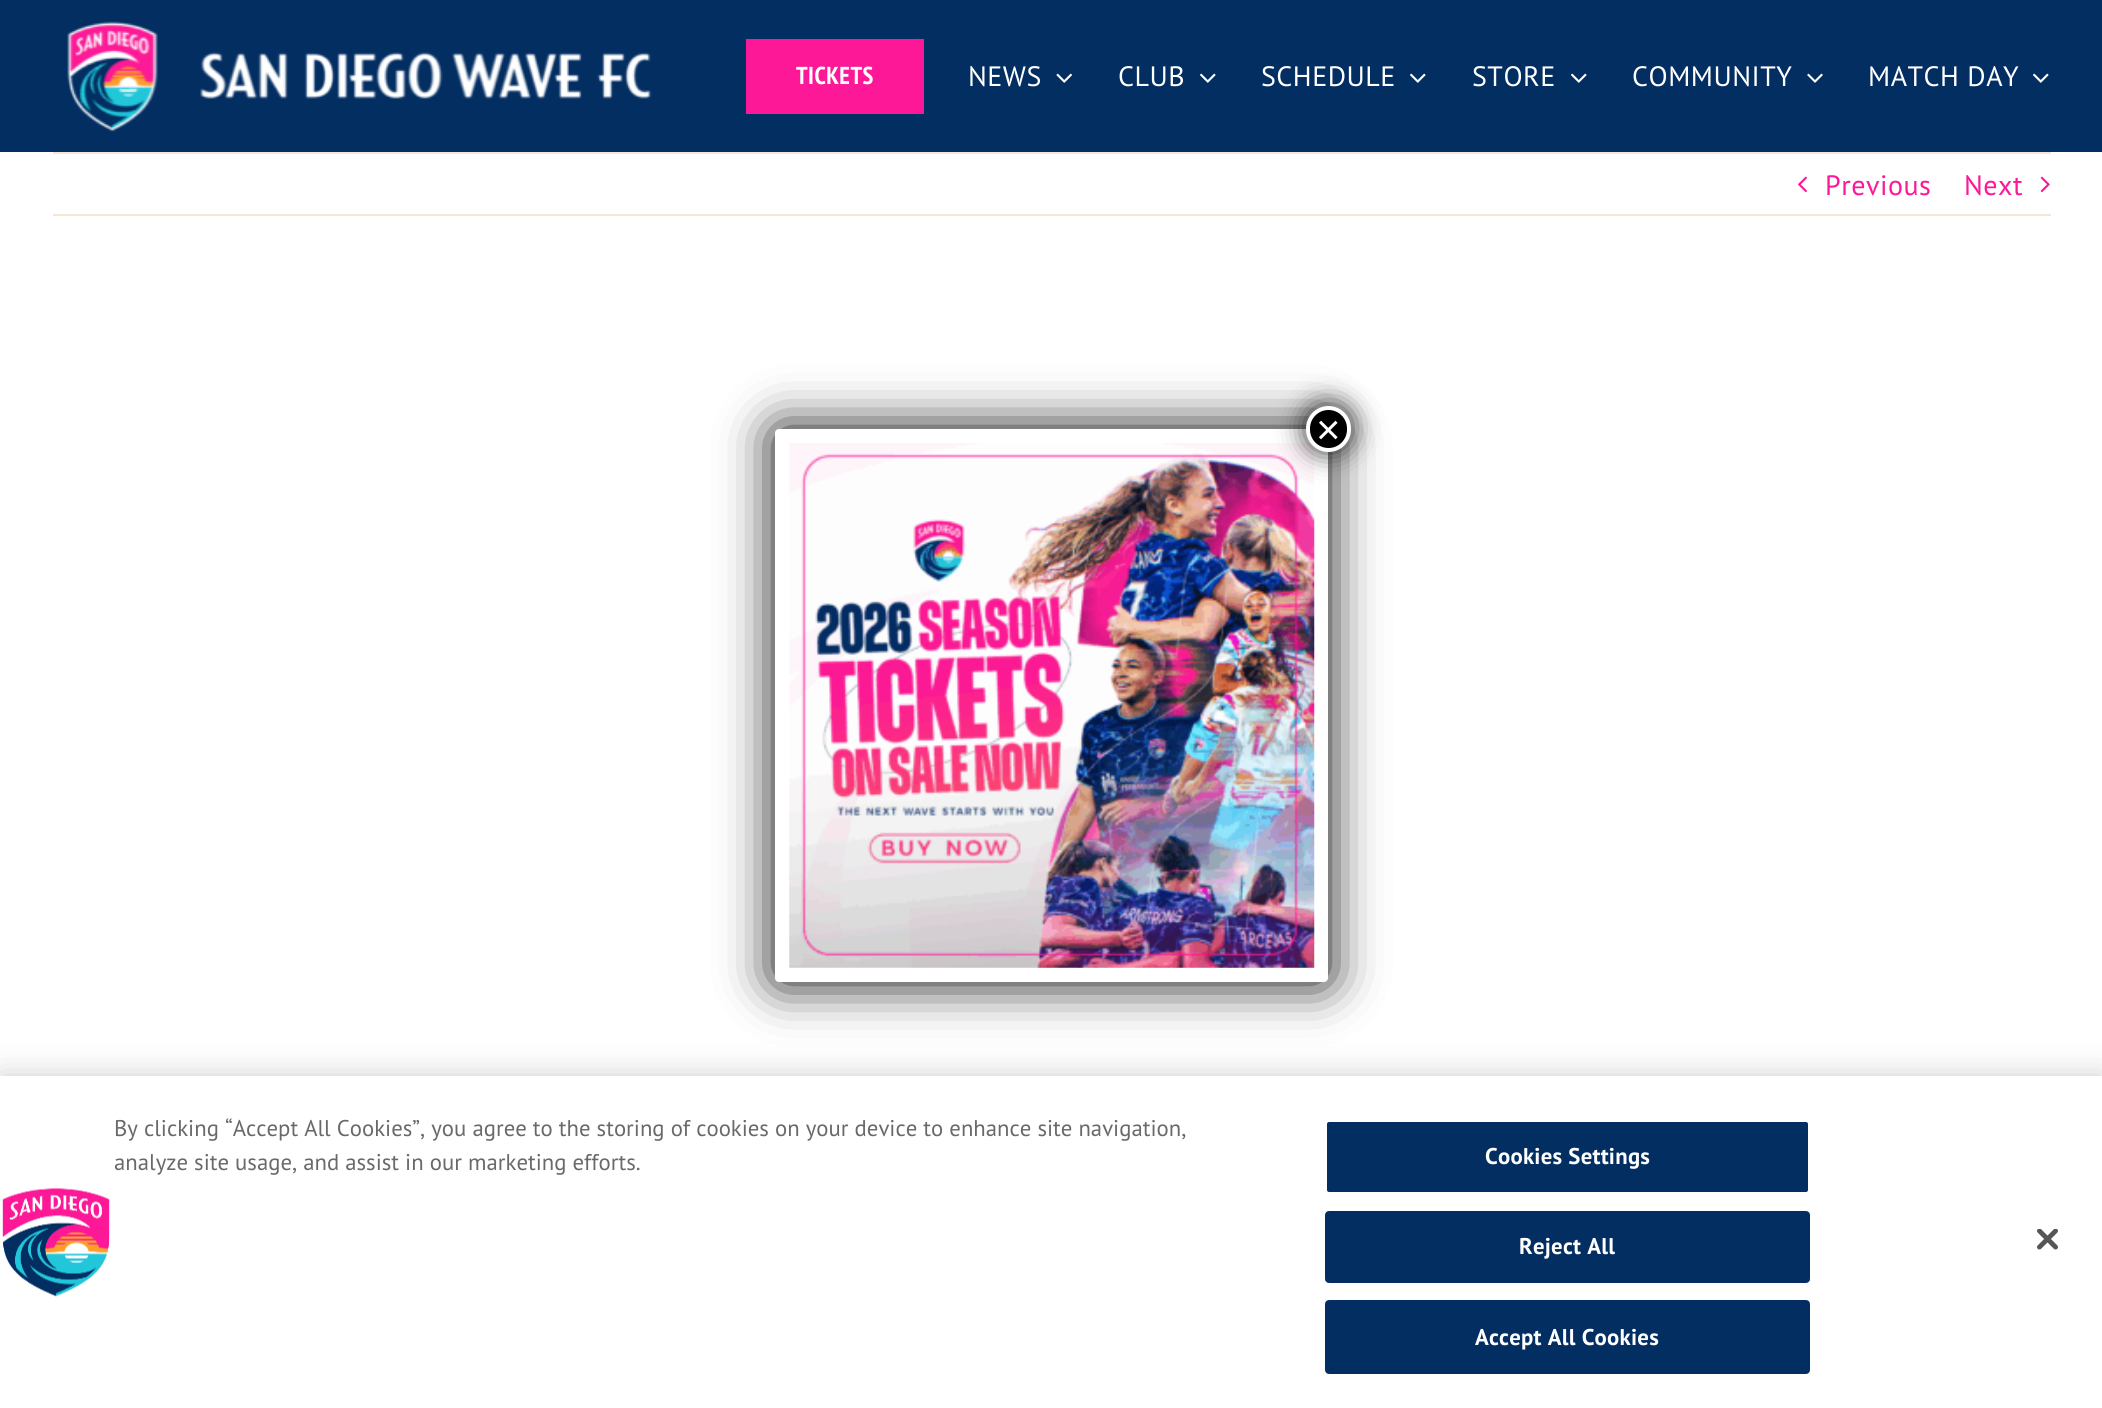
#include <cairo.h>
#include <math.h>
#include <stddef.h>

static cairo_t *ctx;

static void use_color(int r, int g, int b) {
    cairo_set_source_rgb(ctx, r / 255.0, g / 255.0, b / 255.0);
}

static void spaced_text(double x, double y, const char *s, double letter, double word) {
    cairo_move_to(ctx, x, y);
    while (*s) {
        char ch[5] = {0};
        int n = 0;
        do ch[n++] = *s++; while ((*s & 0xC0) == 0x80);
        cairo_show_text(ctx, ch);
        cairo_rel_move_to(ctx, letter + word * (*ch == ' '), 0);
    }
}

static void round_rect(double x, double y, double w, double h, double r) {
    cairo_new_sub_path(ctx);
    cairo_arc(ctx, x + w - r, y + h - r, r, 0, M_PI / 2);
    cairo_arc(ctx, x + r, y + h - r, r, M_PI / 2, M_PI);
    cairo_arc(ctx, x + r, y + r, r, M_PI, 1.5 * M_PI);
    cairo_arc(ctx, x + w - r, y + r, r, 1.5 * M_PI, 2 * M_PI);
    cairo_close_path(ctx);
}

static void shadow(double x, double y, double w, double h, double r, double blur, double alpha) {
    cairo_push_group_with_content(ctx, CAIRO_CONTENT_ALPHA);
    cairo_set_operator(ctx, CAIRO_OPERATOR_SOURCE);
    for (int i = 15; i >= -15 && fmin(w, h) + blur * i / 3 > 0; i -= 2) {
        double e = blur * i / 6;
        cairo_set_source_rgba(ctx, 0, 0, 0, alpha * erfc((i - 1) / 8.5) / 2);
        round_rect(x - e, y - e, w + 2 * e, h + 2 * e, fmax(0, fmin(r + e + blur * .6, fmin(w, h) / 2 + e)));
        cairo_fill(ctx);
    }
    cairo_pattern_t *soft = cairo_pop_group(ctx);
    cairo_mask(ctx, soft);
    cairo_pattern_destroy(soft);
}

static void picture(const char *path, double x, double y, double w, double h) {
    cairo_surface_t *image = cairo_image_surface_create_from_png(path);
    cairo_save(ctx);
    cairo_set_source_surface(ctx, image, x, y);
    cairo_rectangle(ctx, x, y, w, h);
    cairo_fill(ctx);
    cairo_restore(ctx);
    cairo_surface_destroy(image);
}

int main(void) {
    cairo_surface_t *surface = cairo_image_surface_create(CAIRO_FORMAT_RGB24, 2102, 1408);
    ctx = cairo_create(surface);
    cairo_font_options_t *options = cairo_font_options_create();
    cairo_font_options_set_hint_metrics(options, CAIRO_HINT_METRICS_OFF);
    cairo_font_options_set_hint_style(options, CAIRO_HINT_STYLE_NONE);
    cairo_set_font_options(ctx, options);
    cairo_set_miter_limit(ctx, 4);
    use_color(255, 255, 255);
    cairo_paint(ctx);
    use_color(3, 46, 98);
    cairo_rectangle(ctx, 0, 0, 2102, 152);
    cairo_fill(ctx);
    picture("img1.png", 67, 21, 585, 111);
    use_color(252, 24, 150);
    cairo_rectangle(ctx, 746, 39, 178, 75);
    cairo_fill(ctx);
    cairo_select_font_face(ctx, "PT Sans Narrow", CAIRO_FONT_SLANT_NORMAL, CAIRO_FONT_WEIGHT_BOLD);
    cairo_set_font_size(ctx, 24.5);
    use_color(255, 255, 255);
    spaced_text(796, 84, "TICKETS", 0.5, 0);
    cairo_select_font_face(ctx, "PT Sans", CAIRO_FONT_SLANT_NORMAL, CAIRO_FONT_WEIGHT_NORMAL);
    cairo_set_font_size(ctx, 28);
    spaced_text(968, 86, "NEWS", 0.5, 0);
    picture("img2.png", 1056, 73, 16, 10);
    spaced_text(1118, 86, "CLUB", 0.5, 0);
    picture("img3.png", 1200, 73, 16, 10);
    spaced_text(1261, 86, "SCHEDULE", 0.5, 0);
    picture("img3.png", 1410, 73, 16, 10);
    spaced_text(1472, 86, "STORE", 0.5, 0);
    picture("img3.png", 1571, 73, 16, 10);
    spaced_text(1632, 86, "COMMUNITY", 0.5, 0);
    picture("img4.png", 1807, 73, 16, 10);
    spaced_text(1868, 86, "MATCH DAY", 0.5, 0);
    picture("img3.png", 2033, 73, 16, 10);
    use_color(245, 231, 211);
    cairo_rectangle(ctx, 53, 152, 1998, 2);
    cairo_fill(ctx);
    cairo_rectangle(ctx, 53, 214, 1998, 2);
    cairo_fill(ctx);
    picture("img5.png", 1798, 176, 9, 17);
    use_color(252, 24, 150);
    spaced_text(1825, 195, "Previous", 0.5, 0);
    spaced_text(1964, 195, "Next", 0.5, 0);
    picture("img6.png", 2040, 176, 10, 17);
    use_color(2, 2, 2);
    shadow(775, 429, 553, 553, 4, 26, 1);
    use_color(255, 255, 255);
    round_rect(775, 429, 553, 553, 4);
    cairo_fill(ctx);
    picture("img7.png", 789, 443, 526, 525);
    use_color(2, 2, 2);
    shadow(1304, 404, 49, 49, 24.5, 13, 0.75);
    use_color(0, 0, 0);
    round_rect(1308, 408, 41, 42, 20.5);
    cairo_fill_preserve(ctx);
    use_color(255, 255, 255);
    cairo_set_line_width(ctx, 4);
    cairo_stroke(ctx);
    cairo_select_font_face(ctx, "Liberation Sans", CAIRO_FONT_SLANT_NORMAL, CAIRO_FONT_WEIGHT_NORMAL);
    cairo_set_font_size(ctx, 42);
    cairo_move_to(ctx, 1316, 444);
    cairo_show_text(ctx, "×");
    use_color(0, 0, 0);
    shadow(0, 1076, 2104, 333, 0, 16, 0.2);
    use_color(255, 255, 255);
    cairo_rectangle(ctx, 0, 1076, 2102, 332);
    cairo_fill(ctx);
    cairo_select_font_face(ctx, "PT Sans", CAIRO_FONT_SLANT_NORMAL, CAIRO_FONT_WEIGHT_NORMAL);
    cairo_set_font_size(ctx, 22.75);
    use_color(105, 105, 105);
    cairo_move_to(ctx, 114, 1136);
    cairo_show_text(ctx, "By clicking “Accept All Cookies”, you agree to the storing of cookies on your device to enhance site navigation,");
    cairo_move_to(ctx, 114, 1170);
    cairo_show_text(ctx, "analyze site usage, and assist in our marketing efforts.");
    picture("img8.png", 2, 1188, 108, 109);
    use_color(3, 46, 98);
    round_rect(1326, 1121, 483, 72, 3);
    cairo_fill_preserve(ctx);
    use_color(255, 255, 255);
    cairo_set_line_width(ctx, 2);
    cairo_stroke(ctx);
    cairo_select_font_face(ctx, "PT Sans", CAIRO_FONT_SLANT_NORMAL, CAIRO_FONT_WEIGHT_BOLD);
    spaced_text(1485, 1164, "Cookies Settings", 0.25, 0);
    use_color(3, 46, 98);
    round_rect(1326, 1212, 483, 70, 3);
    cairo_fill_preserve(ctx);
    cairo_stroke(ctx);
    use_color(255, 255, 255);
    spaced_text(1519, 1254, "Reject All", 0.25, 0);
    use_color(3, 46, 98);
    round_rect(1326, 1301, 483, 72, 3);
    cairo_fill_preserve(ctx);
    cairo_stroke(ctx);
    use_color(255, 255, 255);
    spaced_text(1475, 1345, "Accept All Cookies", 0.25, 0);
    picture("img9.png", 2037, 1229, 21, 21);
    cairo_surface_write_to_png(surface, "result.png");
    cairo_font_options_destroy(options);
    cairo_destroy(ctx);
    cairo_surface_destroy(surface);
    return 0;
}
